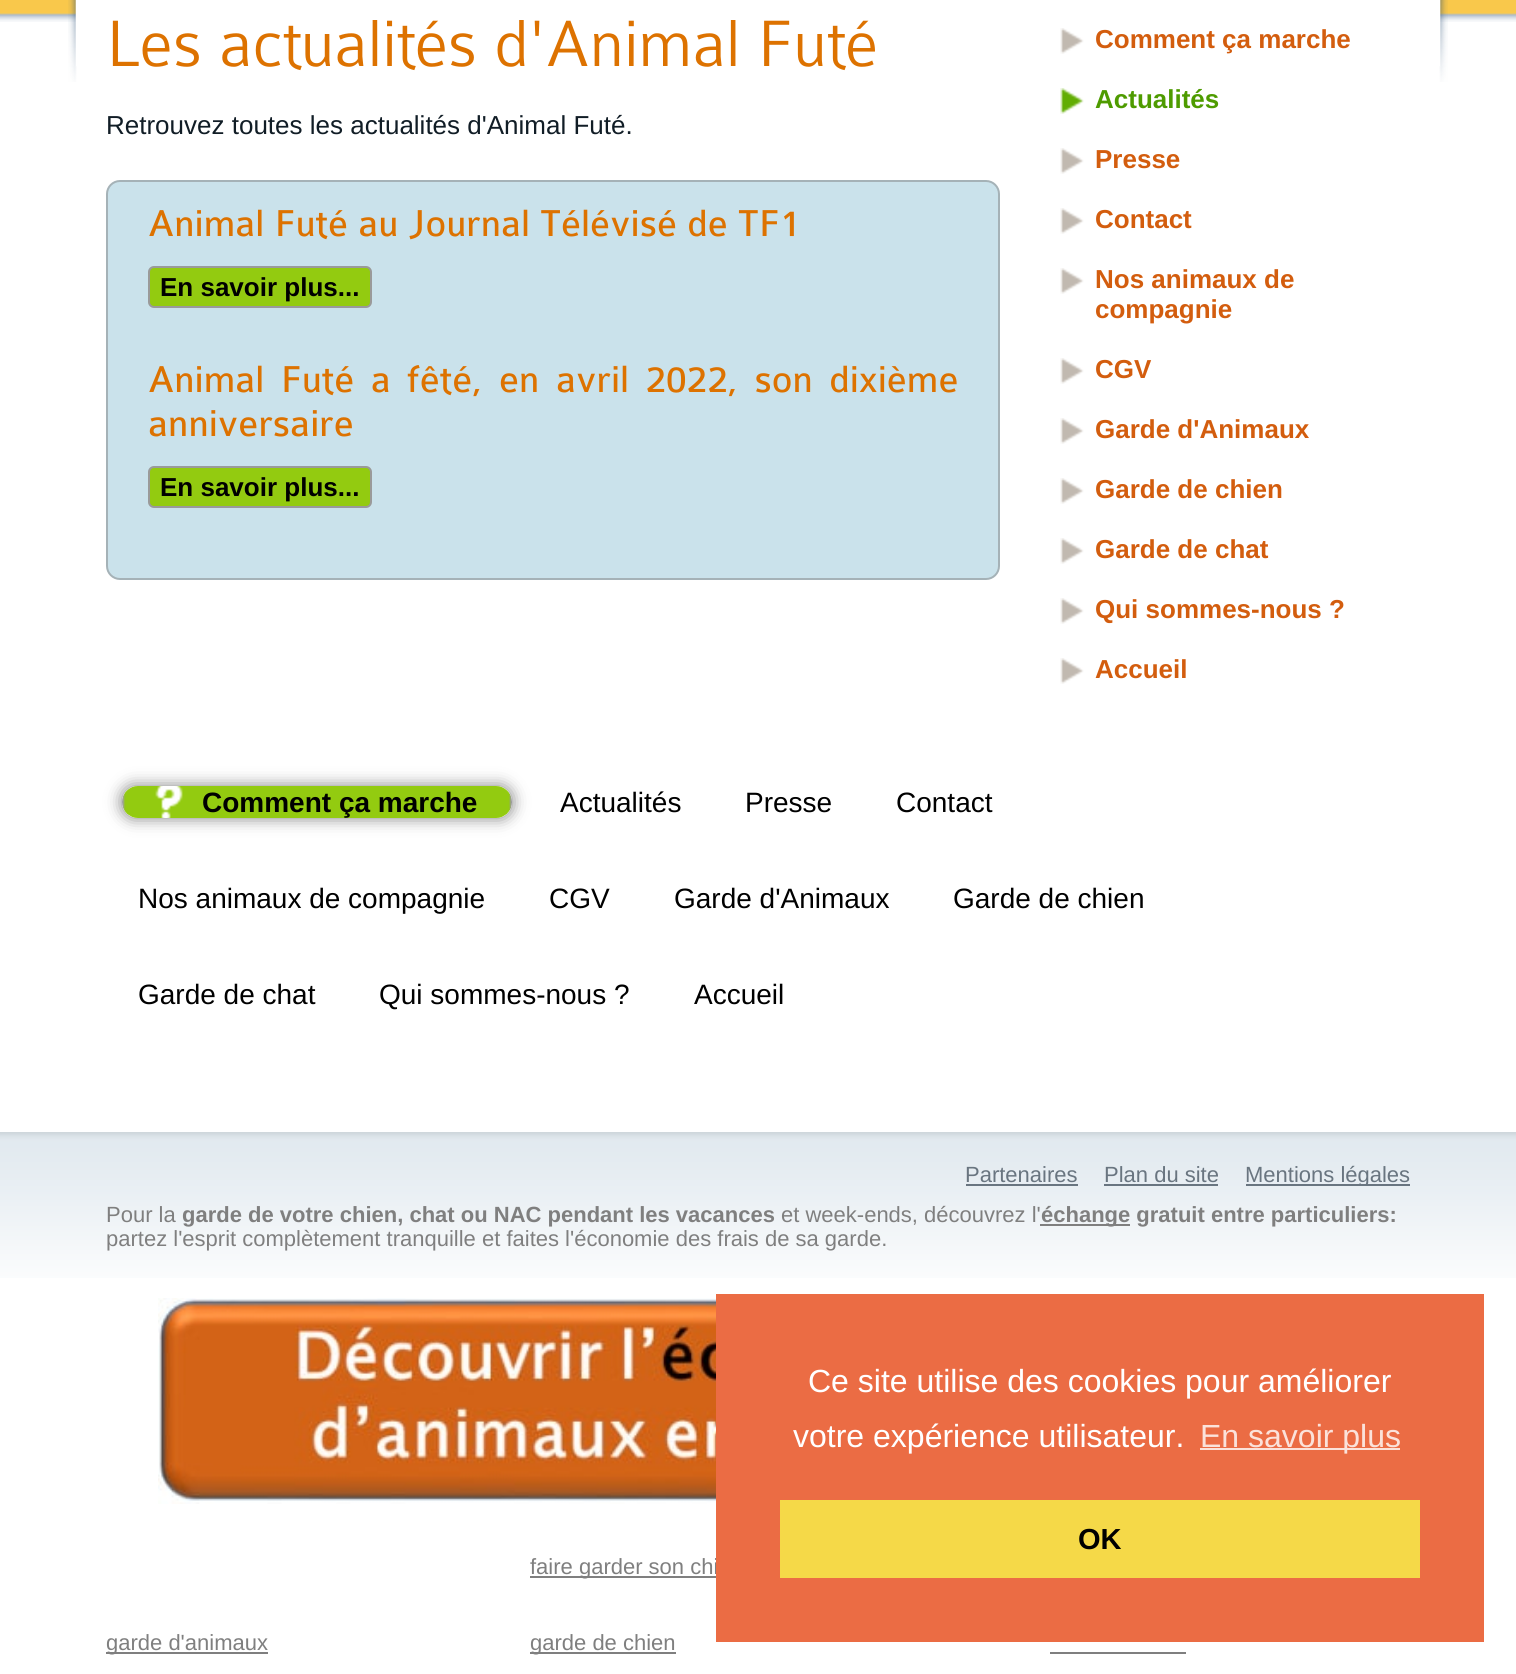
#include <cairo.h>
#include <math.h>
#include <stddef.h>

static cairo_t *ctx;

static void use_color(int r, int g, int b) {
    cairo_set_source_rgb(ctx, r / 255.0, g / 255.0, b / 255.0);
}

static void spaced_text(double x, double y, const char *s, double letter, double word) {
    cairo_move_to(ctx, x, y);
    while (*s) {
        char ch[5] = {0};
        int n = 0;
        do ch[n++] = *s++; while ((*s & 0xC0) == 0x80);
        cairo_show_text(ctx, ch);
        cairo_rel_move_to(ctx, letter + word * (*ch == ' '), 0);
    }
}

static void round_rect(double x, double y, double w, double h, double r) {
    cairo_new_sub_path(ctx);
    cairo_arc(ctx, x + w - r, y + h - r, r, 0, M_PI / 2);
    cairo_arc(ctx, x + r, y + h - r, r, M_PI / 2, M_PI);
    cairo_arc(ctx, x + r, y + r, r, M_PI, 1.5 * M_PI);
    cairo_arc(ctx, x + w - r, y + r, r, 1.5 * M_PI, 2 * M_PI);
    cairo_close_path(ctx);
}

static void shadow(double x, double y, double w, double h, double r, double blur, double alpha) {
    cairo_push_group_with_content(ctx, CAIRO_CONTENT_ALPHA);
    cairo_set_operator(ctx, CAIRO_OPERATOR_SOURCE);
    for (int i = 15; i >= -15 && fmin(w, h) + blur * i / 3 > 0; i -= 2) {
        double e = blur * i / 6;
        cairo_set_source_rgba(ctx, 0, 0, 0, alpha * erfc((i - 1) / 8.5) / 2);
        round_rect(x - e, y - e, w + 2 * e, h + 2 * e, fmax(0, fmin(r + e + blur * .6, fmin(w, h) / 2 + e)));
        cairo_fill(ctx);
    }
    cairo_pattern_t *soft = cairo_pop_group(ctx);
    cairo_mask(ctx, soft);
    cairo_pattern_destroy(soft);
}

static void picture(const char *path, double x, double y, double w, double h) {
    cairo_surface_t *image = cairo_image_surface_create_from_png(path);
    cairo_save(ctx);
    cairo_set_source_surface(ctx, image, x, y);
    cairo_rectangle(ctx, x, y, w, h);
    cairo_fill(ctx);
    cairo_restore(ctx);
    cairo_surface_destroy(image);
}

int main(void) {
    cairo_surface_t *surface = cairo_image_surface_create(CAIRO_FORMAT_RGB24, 1516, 1674);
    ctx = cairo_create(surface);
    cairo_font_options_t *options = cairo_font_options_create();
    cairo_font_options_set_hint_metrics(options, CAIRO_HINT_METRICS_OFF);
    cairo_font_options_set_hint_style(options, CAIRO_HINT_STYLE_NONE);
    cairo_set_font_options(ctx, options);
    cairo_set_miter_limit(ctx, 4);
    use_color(255, 255, 255);
    cairo_paint(ctx);
    picture("img1.png", 0, 0, 1516, 22);
    picture("img2.png", 68, 0, 1380, 82);
    use_color(255, 255, 255);
    cairo_rectangle(ctx, 76, 0, 1364, 66);
    cairo_fill(ctx);
    cairo_select_font_face(ctx, "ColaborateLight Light", CAIRO_FONT_SLANT_NORMAL, CAIRO_FONT_WEIGHT_NORMAL);
    cairo_set_font_size(ctx, 70);
    use_color(221, 114, 0);
    cairo_move_to(ctx, 106, 66);
    cairo_show_text(ctx, "Les actualités d'Animal Futé");
    cairo_select_font_face(ctx, "Liberation Sans", CAIRO_FONT_SLANT_NORMAL, CAIRO_FONT_WEIGHT_NORMAL);
    cairo_set_font_size(ctx, 26);
    use_color(17, 29, 38);
    cairo_move_to(ctx, 106, 134);
    cairo_show_text(ctx, "Retrouvez toutes les actualités d'Animal Futé.");
    use_color(202, 226, 235);
    round_rect(107, 181, 892, 398, 13);
    cairo_fill_preserve(ctx);
    use_color(165, 178, 183);
    cairo_stroke(ctx);
    cairo_select_font_face(ctx, "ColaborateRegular", CAIRO_FONT_SLANT_NORMAL, CAIRO_FONT_WEIGHT_NORMAL);
    cairo_set_font_size(ctx, 40);
    use_color(221, 114, 0);
    cairo_move_to(ctx, 148, 236);
    cairo_show_text(ctx, "Animal Futé au Journal Télévisé de TF1");
    use_color(147, 203, 16);
    round_rect(149, 267, 222, 40, 5);
    cairo_fill_preserve(ctx);
    use_color(154, 154, 154);
    cairo_stroke(ctx);
    cairo_select_font_face(ctx, "Liberation Sans", CAIRO_FONT_SLANT_NORMAL, CAIRO_FONT_WEIGHT_BOLD);
    cairo_set_font_size(ctx, 26);
    use_color(0, 0, 0);
    cairo_move_to(ctx, 160, 296);
    cairo_show_text(ctx, "En savoir plus...");
    cairo_select_font_face(ctx, "ColaborateRegular", CAIRO_FONT_SLANT_NORMAL, CAIRO_FONT_WEIGHT_NORMAL);
    cairo_set_font_size(ctx, 40);
    use_color(221, 114, 0);
    spaced_text(148, 392, "Animal Futé a fêté, en avril 2022, son dixième", 0, 6.25);
    cairo_move_to(ctx, 148, 436);
    cairo_show_text(ctx, "anniversaire");
    use_color(147, 203, 16);
    round_rect(149, 467, 222, 40, 5);
    cairo_fill_preserve(ctx);
    use_color(154, 154, 154);
    cairo_stroke(ctx);
    cairo_select_font_face(ctx, "Liberation Sans", CAIRO_FONT_SLANT_NORMAL, CAIRO_FONT_WEIGHT_BOLD);
    cairo_set_font_size(ctx, 26);
    use_color(0, 0, 0);
    cairo_move_to(ctx, 160, 496);
    cairo_show_text(ctx, "En savoir plus...");
    picture("img3.png", 1060, 28, 24, 26);
    use_color(211, 93, 14);
    cairo_move_to(ctx, 1095, 48);
    cairo_show_text(ctx, "Comment ça marche");
    picture("img4.png", 1060, 88, 24, 26);
    use_color(78, 155, 0);
    cairo_move_to(ctx, 1095, 108);
    cairo_show_text(ctx, "Actualités");
    picture("img3.png", 1060, 148, 24, 26);
    use_color(211, 93, 14);
    cairo_move_to(ctx, 1095, 168);
    cairo_show_text(ctx, "Presse");
    picture("img3.png", 1060, 208, 24, 26);
    cairo_move_to(ctx, 1095, 228);
    cairo_show_text(ctx, "Contact");
    picture("img3.png", 1060, 268, 24, 26);
    cairo_move_to(ctx, 1095, 288);
    cairo_show_text(ctx, "Nos animaux de");
    cairo_move_to(ctx, 1095, 318);
    cairo_show_text(ctx, "compagnie");
    picture("img3.png", 1060, 358, 24, 26);
    cairo_move_to(ctx, 1095, 378);
    cairo_show_text(ctx, "CGV");
    picture("img3.png", 1060, 418, 24, 26);
    cairo_move_to(ctx, 1095, 438);
    cairo_show_text(ctx, "Garde d'Animaux");
    picture("img3.png", 1060, 478, 24, 26);
    cairo_move_to(ctx, 1095, 498);
    cairo_show_text(ctx, "Garde de chien");
    picture("img3.png", 1060, 538, 24, 26);
    cairo_move_to(ctx, 1095, 558);
    cairo_show_text(ctx, "Garde de chat");
    picture("img3.png", 1060, 598, 24, 26);
    cairo_move_to(ctx, 1095, 618);
    cairo_show_text(ctx, "Qui sommes-nous ?");
    picture("img3.png", 1060, 658, 24, 26);
    cairo_move_to(ctx, 1095, 678);
    cairo_show_text(ctx, "Accueil");
    cairo_save(ctx);
    cairo_set_fill_rule(ctx, CAIRO_FILL_RULE_EVEN_ODD);
    cairo_new_path(ctx);
    cairo_move_to(ctx, 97, 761);
    cairo_line_to(ctx, 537, 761);
    cairo_line_to(ctx, 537, 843);
    cairo_line_to(ctx, 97, 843);
    cairo_close_path(ctx);
    cairo_move_to(ctx, 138, 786);
    cairo_line_to(ctx, 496, 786);
    cairo_curve_to(ctx, 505, 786, 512, 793, 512, 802);
    cairo_curve_to(ctx, 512, 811, 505, 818, 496, 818);
    cairo_line_to(ctx, 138, 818);
    cairo_curve_to(ctx, 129, 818, 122, 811, 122, 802);
    cairo_curve_to(ctx, 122, 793, 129, 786, 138, 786);
    cairo_close_path(ctx);
    cairo_clip(ctx);
    use_color(0, 0, 0);
    shadow(122, 786, 390, 32, 16, 8, 0.5);
    cairo_restore(ctx);
    picture("img5.png", 122, 786, 390, 32);
    cairo_set_font_size(ctx, 28);
    use_color(0, 0, 0);
    cairo_move_to(ctx, 202, 812);
    cairo_show_text(ctx, "Comment ça marche");
    cairo_select_font_face(ctx, "Liberation Sans", CAIRO_FONT_SLANT_NORMAL, CAIRO_FONT_WEIGHT_NORMAL);
    cairo_move_to(ctx, 560, 812);
    cairo_show_text(ctx, "Actualités");
    cairo_move_to(ctx, 745, 812);
    cairo_show_text(ctx, "Presse");
    cairo_move_to(ctx, 896, 812);
    cairo_show_text(ctx, "Contact");
    cairo_move_to(ctx, 138, 908);
    cairo_show_text(ctx, "Nos animaux de compagnie");
    cairo_move_to(ctx, 549, 908);
    cairo_show_text(ctx, "CGV");
    cairo_move_to(ctx, 674, 908);
    cairo_show_text(ctx, "Garde d'Animaux");
    cairo_move_to(ctx, 953, 908);
    cairo_show_text(ctx, "Garde de chien");
    cairo_move_to(ctx, 138, 1004);
    cairo_show_text(ctx, "Garde de chat");
    cairo_move_to(ctx, 379, 1004);
    cairo_show_text(ctx, "Qui sommes-nous ?");
    cairo_move_to(ctx, 694, 1004);
    cairo_show_text(ctx, "Accueil");
    picture("img6.png", 0, 1132, 1516, 146);
    cairo_set_font_size(ctx, 22);
    use_color(105, 117, 128);
    cairo_move_to(ctx, 965, 1182);
    cairo_show_text(ctx, "Partenaires");
    cairo_rectangle(ctx, 966, 1184, 112, 2);
    cairo_fill(ctx);
    cairo_move_to(ctx, 1104, 1182);
    cairo_show_text(ctx, "Plan du site");
    cairo_rectangle(ctx, 1104, 1184, 114, 2);
    cairo_fill(ctx);
    cairo_rectangle(ctx, 1246, 1184, 164, 2);
    cairo_fill(ctx);
    cairo_save(ctx);
    cairo_rectangle(ctx, 966, 1162, 444, 24);
    cairo_clip(ctx);
    cairo_move_to(ctx, 1245, 1182);
    cairo_show_text(ctx, "Mentions légales");
    cairo_restore(ctx);
    use_color(127, 127, 127);
    cairo_move_to(ctx, 106, 1222);
    cairo_show_text(ctx, "Pour la");
    cairo_select_font_face(ctx, "Liberation Sans", CAIRO_FONT_SLANT_NORMAL, CAIRO_FONT_WEIGHT_BOLD);
    cairo_move_to(ctx, 182, 1222);
    cairo_show_text(ctx, "garde de votre chien, chat ou NAC pendant les vacances");
    cairo_select_font_face(ctx, "Liberation Sans", CAIRO_FONT_SLANT_NORMAL, CAIRO_FONT_WEIGHT_NORMAL);
    cairo_move_to(ctx, 781, 1222);
    cairo_show_text(ctx, "et week-ends, découvrez l'");
    cairo_rectangle(ctx, 1040, 1224, 90, 2);
    cairo_fill(ctx);
    cairo_select_font_face(ctx, "Liberation Sans", CAIRO_FONT_SLANT_NORMAL, CAIRO_FONT_WEIGHT_BOLD);
    cairo_move_to(ctx, 1041, 1222);
    cairo_show_text(ctx, "échange gratuit entre particuliers:");
    cairo_select_font_face(ctx, "Liberation Sans", CAIRO_FONT_SLANT_NORMAL, CAIRO_FONT_WEIGHT_NORMAL);
    cairo_move_to(ctx, 106, 1246);
    cairo_show_text(ctx, "partez l'esprit complètement tranquille et faites l'économie des frais de sa garde.");
    picture("img7.png", 158, 1298, 558, 206);
    cairo_rectangle(ctx, 530, 1576, 186, 2);
    cairo_fill(ctx);
    cairo_move_to(ctx, 530, 1574);
    cairo_show_text(ctx, "faire garder son chi");
    cairo_rectangle(ctx, 106, 1652, 162, 2);
    cairo_fill(ctx);
    cairo_move_to(ctx, 106, 1650);
    cairo_show_text(ctx, "garde d'animaux");
    cairo_rectangle(ctx, 530, 1652, 146, 2);
    cairo_fill(ctx);
    cairo_move_to(ctx, 530, 1650);
    cairo_show_text(ctx, "garde de chien");
    cairo_rectangle(ctx, 1050, 1652, 136, 2);
    cairo_fill(ctx);
    use_color(235, 108, 68);
    cairo_rectangle(ctx, 716, 1294, 768, 348);
    cairo_fill(ctx);
    cairo_set_font_size(ctx, 32);
    use_color(255, 255, 255);
    cairo_move_to(ctx, 808, 1392);
    cairo_show_text(ctx, "Ce site utilise des cookies pour améliorer");
    cairo_move_to(ctx, 793, 1447);
    cairo_show_text(ctx, "votre expérience utilisateur.");
    use_color(251, 226, 218);
    cairo_rectangle(ctx, 1200, 1448, 200, 2);
    cairo_fill(ctx);
    cairo_move_to(ctx, 1200, 1447);
    cairo_show_text(ctx, "En savoir plus");
    use_color(245, 217, 72);
    cairo_rectangle(ctx, 780, 1500, 640, 78);
    cairo_fill(ctx);
    cairo_select_font_face(ctx, "Liberation Sans", CAIRO_FONT_SLANT_NORMAL, CAIRO_FONT_WEIGHT_BOLD);
    cairo_set_font_size(ctx, 29);
    use_color(0, 0, 0);
    cairo_move_to(ctx, 1078, 1549);
    cairo_show_text(ctx, "OK");
    cairo_surface_write_to_png(surface, "result.png");
    cairo_font_options_destroy(options);
    cairo_destroy(ctx);
    cairo_surface_destroy(surface);
    return 0;
}
